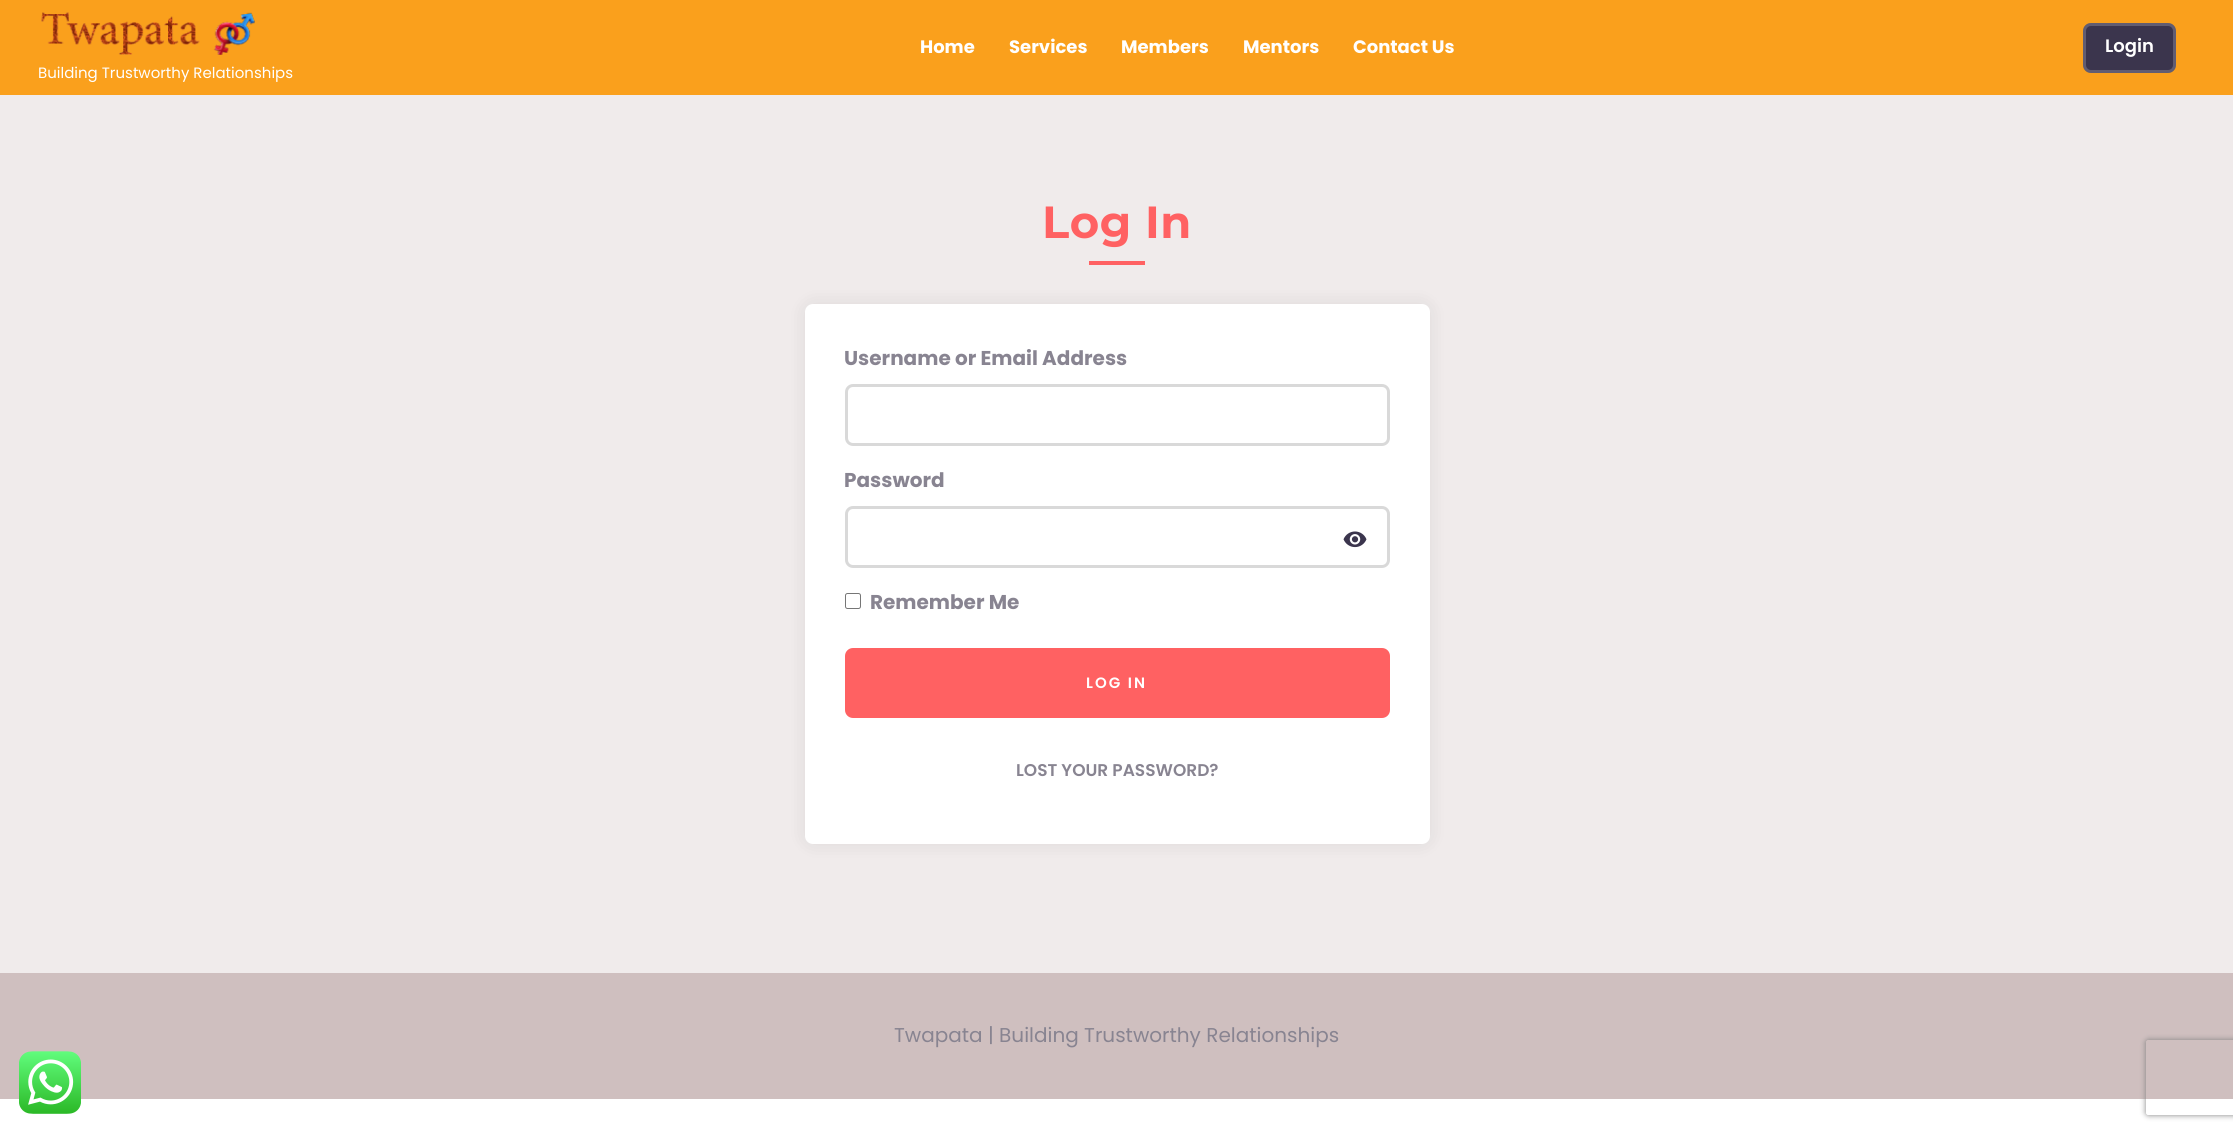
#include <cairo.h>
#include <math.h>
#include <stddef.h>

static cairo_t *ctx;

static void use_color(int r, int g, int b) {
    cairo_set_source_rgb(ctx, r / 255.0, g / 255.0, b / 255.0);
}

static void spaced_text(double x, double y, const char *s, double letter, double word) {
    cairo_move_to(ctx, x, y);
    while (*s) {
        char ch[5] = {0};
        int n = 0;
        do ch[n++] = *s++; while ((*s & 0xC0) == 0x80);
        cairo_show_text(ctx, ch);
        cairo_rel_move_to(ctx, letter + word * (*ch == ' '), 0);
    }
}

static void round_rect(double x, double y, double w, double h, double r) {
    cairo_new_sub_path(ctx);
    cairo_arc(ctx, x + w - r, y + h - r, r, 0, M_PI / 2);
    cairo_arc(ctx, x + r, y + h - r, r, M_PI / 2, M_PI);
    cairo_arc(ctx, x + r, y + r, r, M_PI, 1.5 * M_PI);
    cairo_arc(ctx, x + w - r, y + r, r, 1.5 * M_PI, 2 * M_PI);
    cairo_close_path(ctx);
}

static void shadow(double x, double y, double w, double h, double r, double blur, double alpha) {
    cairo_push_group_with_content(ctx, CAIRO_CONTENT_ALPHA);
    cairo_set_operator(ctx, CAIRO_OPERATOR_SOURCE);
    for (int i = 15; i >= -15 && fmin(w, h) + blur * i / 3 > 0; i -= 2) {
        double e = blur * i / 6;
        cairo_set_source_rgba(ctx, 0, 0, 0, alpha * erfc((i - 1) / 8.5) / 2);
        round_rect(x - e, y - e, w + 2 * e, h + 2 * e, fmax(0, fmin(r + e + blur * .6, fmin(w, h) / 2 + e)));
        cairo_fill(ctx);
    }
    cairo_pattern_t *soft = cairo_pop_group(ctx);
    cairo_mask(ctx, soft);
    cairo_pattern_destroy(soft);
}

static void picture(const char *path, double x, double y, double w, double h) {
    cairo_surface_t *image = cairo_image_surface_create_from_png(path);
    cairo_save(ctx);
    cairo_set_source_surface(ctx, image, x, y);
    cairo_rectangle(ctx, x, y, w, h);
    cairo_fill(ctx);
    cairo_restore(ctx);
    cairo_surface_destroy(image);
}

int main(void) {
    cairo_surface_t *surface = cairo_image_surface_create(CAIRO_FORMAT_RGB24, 2233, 1132);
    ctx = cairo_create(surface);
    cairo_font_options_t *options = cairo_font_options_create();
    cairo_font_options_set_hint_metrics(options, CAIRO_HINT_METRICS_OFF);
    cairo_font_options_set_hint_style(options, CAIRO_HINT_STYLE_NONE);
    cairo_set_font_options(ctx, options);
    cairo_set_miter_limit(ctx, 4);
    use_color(255, 255, 255);
    cairo_paint(ctx);
    use_color(250, 160, 28);
    cairo_rectangle(ctx, 0, 0, 2233, 95);
    cairo_fill(ctx);
    cairo_select_font_face(ctx, "Poppins", CAIRO_FONT_SLANT_NORMAL, CAIRO_FONT_WEIGHT_BOLD);
    cairo_set_font_size(ctx, 18);
    use_color(255, 255, 255);
    cairo_move_to(ctx, 920, 53);
    cairo_show_text(ctx, "Home");
    cairo_move_to(ctx, 1009, 53);
    cairo_show_text(ctx, "Services");
    cairo_move_to(ctx, 1121, 53);
    cairo_show_text(ctx, "Members");
    cairo_move_to(ctx, 1243, 53);
    cairo_show_text(ctx, "Mentors");
    cairo_move_to(ctx, 1353, 53);
    cairo_show_text(ctx, "Contact Us");
    use_color(59, 53, 77);
    round_rect(2083, 23, 93, 50, 8);
    cairo_fill(ctx);
    round_rect(2084.5, 24.5, 90, 47, 6.5);
    cairo_set_source_rgba(ctx, 1, 1, 1, 0.2);
    cairo_set_line_width(ctx, 3);
    cairo_stroke(ctx);
    cairo_select_font_face(ctx, "Poppins SemiBold", CAIRO_FONT_SLANT_NORMAL, CAIRO_FONT_WEIGHT_NORMAL);
    use_color(255, 255, 255);
    cairo_move_to(ctx, 2105, 52);
    cairo_show_text(ctx, "Login");
    picture("img1.png", 41, 12, 214, 43);
    cairo_select_font_face(ctx, "Poppins", CAIRO_FONT_SLANT_NORMAL, CAIRO_FONT_WEIGHT_NORMAL);
    cairo_set_font_size(ctx, 15);
    cairo_move_to(ctx, 38, 78);
    cairo_show_text(ctx, "Building Trustworthy Relationships");
    use_color(240, 235, 235);
    cairo_rectangle(ctx, 0, 95, 2233, 878);
    cairo_fill(ctx);
    cairo_select_font_face(ctx, "Montserrat", CAIRO_FONT_SLANT_NORMAL, CAIRO_FONT_WEIGHT_BOLD);
    cairo_set_font_size(ctx, 45);
    use_color(255, 97, 98);
    spaced_text(1042, 238, "Log In", 0.5, 0);
    cairo_rectangle(ctx, 1089, 261, 56, 4);
    cairo_fill(ctx);
    use_color(0, 0, 0);
    shadow(805, 304, 625, 540, 8, 9.5, 0.08);
    use_color(255, 255, 255);
    round_rect(805, 304, 625, 540, 8);
    cairo_fill(ctx);
    cairo_select_font_face(ctx, "Poppins", CAIRO_FONT_SLANT_NORMAL, CAIRO_FONT_WEIGHT_BOLD);
    cairo_set_font_size(ctx, 20);
    use_color(136, 132, 145);
    cairo_move_to(ctx, 844, 365);
    cairo_show_text(ctx, "Username or Email Address");
    round_rect(846.5, 385.5, 542, 59, 6.5);
    use_color(217, 217, 217);
    cairo_stroke(ctx);
    use_color(136, 132, 145);
    cairo_move_to(ctx, 844, 487);
    cairo_show_text(ctx, "Password");
    round_rect(846.5, 507.5, 542, 59, 6.5);
    use_color(217, 217, 217);
    cairo_stroke(ctx);
    picture("img2.png", 1343, 531, 24, 17);
    round_rect(845.5, 593.5, 15, 15, 2);
    use_color(118, 118, 118);
    cairo_set_line_width(ctx, 1);
    cairo_stroke(ctx);
    use_color(136, 132, 145);
    cairo_move_to(ctx, 870, 609);
    cairo_show_text(ctx, "Remember Me");
    use_color(255, 97, 98);
    round_rect(846.5, 649.5, 542, 67, 6.5);
    cairo_fill_preserve(ctx);
    cairo_set_line_width(ctx, 3);
    cairo_stroke(ctx);
    cairo_select_font_face(ctx, "Poppins SemiBold", CAIRO_FONT_SLANT_NORMAL, CAIRO_FONT_WEIGHT_NORMAL);
    cairo_set_font_size(ctx, 15);
    use_color(255, 255, 255);
    spaced_text(1086, 688, "LOG IN", 2, 0);
    cairo_set_font_size(ctx, 17);
    use_color(136, 132, 145);
    cairo_move_to(ctx, 1016, 776);
    cairo_show_text(ctx, "LOST YOUR PASSWORD?");
    use_color(207, 191, 191);
    cairo_rectangle(ctx, 0, 973, 2233, 126);
    cairo_fill(ctx);
    cairo_select_font_face(ctx, "Poppins", CAIRO_FONT_SLANT_NORMAL, CAIRO_FONT_WEIGHT_NORMAL);
    cairo_set_font_size(ctx, 20);
    use_color(136, 132, 145);
    cairo_move_to(ctx, 894, 1042);
    cairo_show_text(ctx, "Twapata | Building Trustworthy Relationships");
    picture("img3.png", 19, 1051, 62, 63);
    cairo_save(ctx);
    cairo_set_fill_rule(ctx, CAIRO_FILL_RULE_EVEN_ODD);
    cairo_new_path(ctx);
    cairo_move_to(ctx, 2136, 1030);
    cairo_line_to(ctx, 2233, 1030);
    cairo_line_to(ctx, 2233, 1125);
    cairo_line_to(ctx, 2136, 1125);
    cairo_close_path(ctx);
    cairo_move_to(ctx, 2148.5, 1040);
    cairo_line_to(ctx, 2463.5, 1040);
    cairo_curve_to(ctx, 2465, 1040, 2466, 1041, 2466, 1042.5);
    cairo_line_to(ctx, 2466, 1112.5);
    cairo_curve_to(ctx, 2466, 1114, 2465, 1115, 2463.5, 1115);
    cairo_line_to(ctx, 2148.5, 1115);
    cairo_curve_to(ctx, 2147, 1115, 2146, 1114, 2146, 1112.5);
    cairo_line_to(ctx, 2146, 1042.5);
    cairo_curve_to(ctx, 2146, 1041, 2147, 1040, 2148.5, 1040);
    cairo_close_path(ctx);
    cairo_clip(ctx);
    use_color(128, 128, 128);
    shadow(2146, 1040, 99, 75, 2.5, 3, 1);
    cairo_restore(ctx);
    cairo_surface_write_to_png(surface, "result.png");
    cairo_font_options_destroy(options);
    cairo_destroy(ctx);
    cairo_surface_destroy(surface);
    return 0;
}
